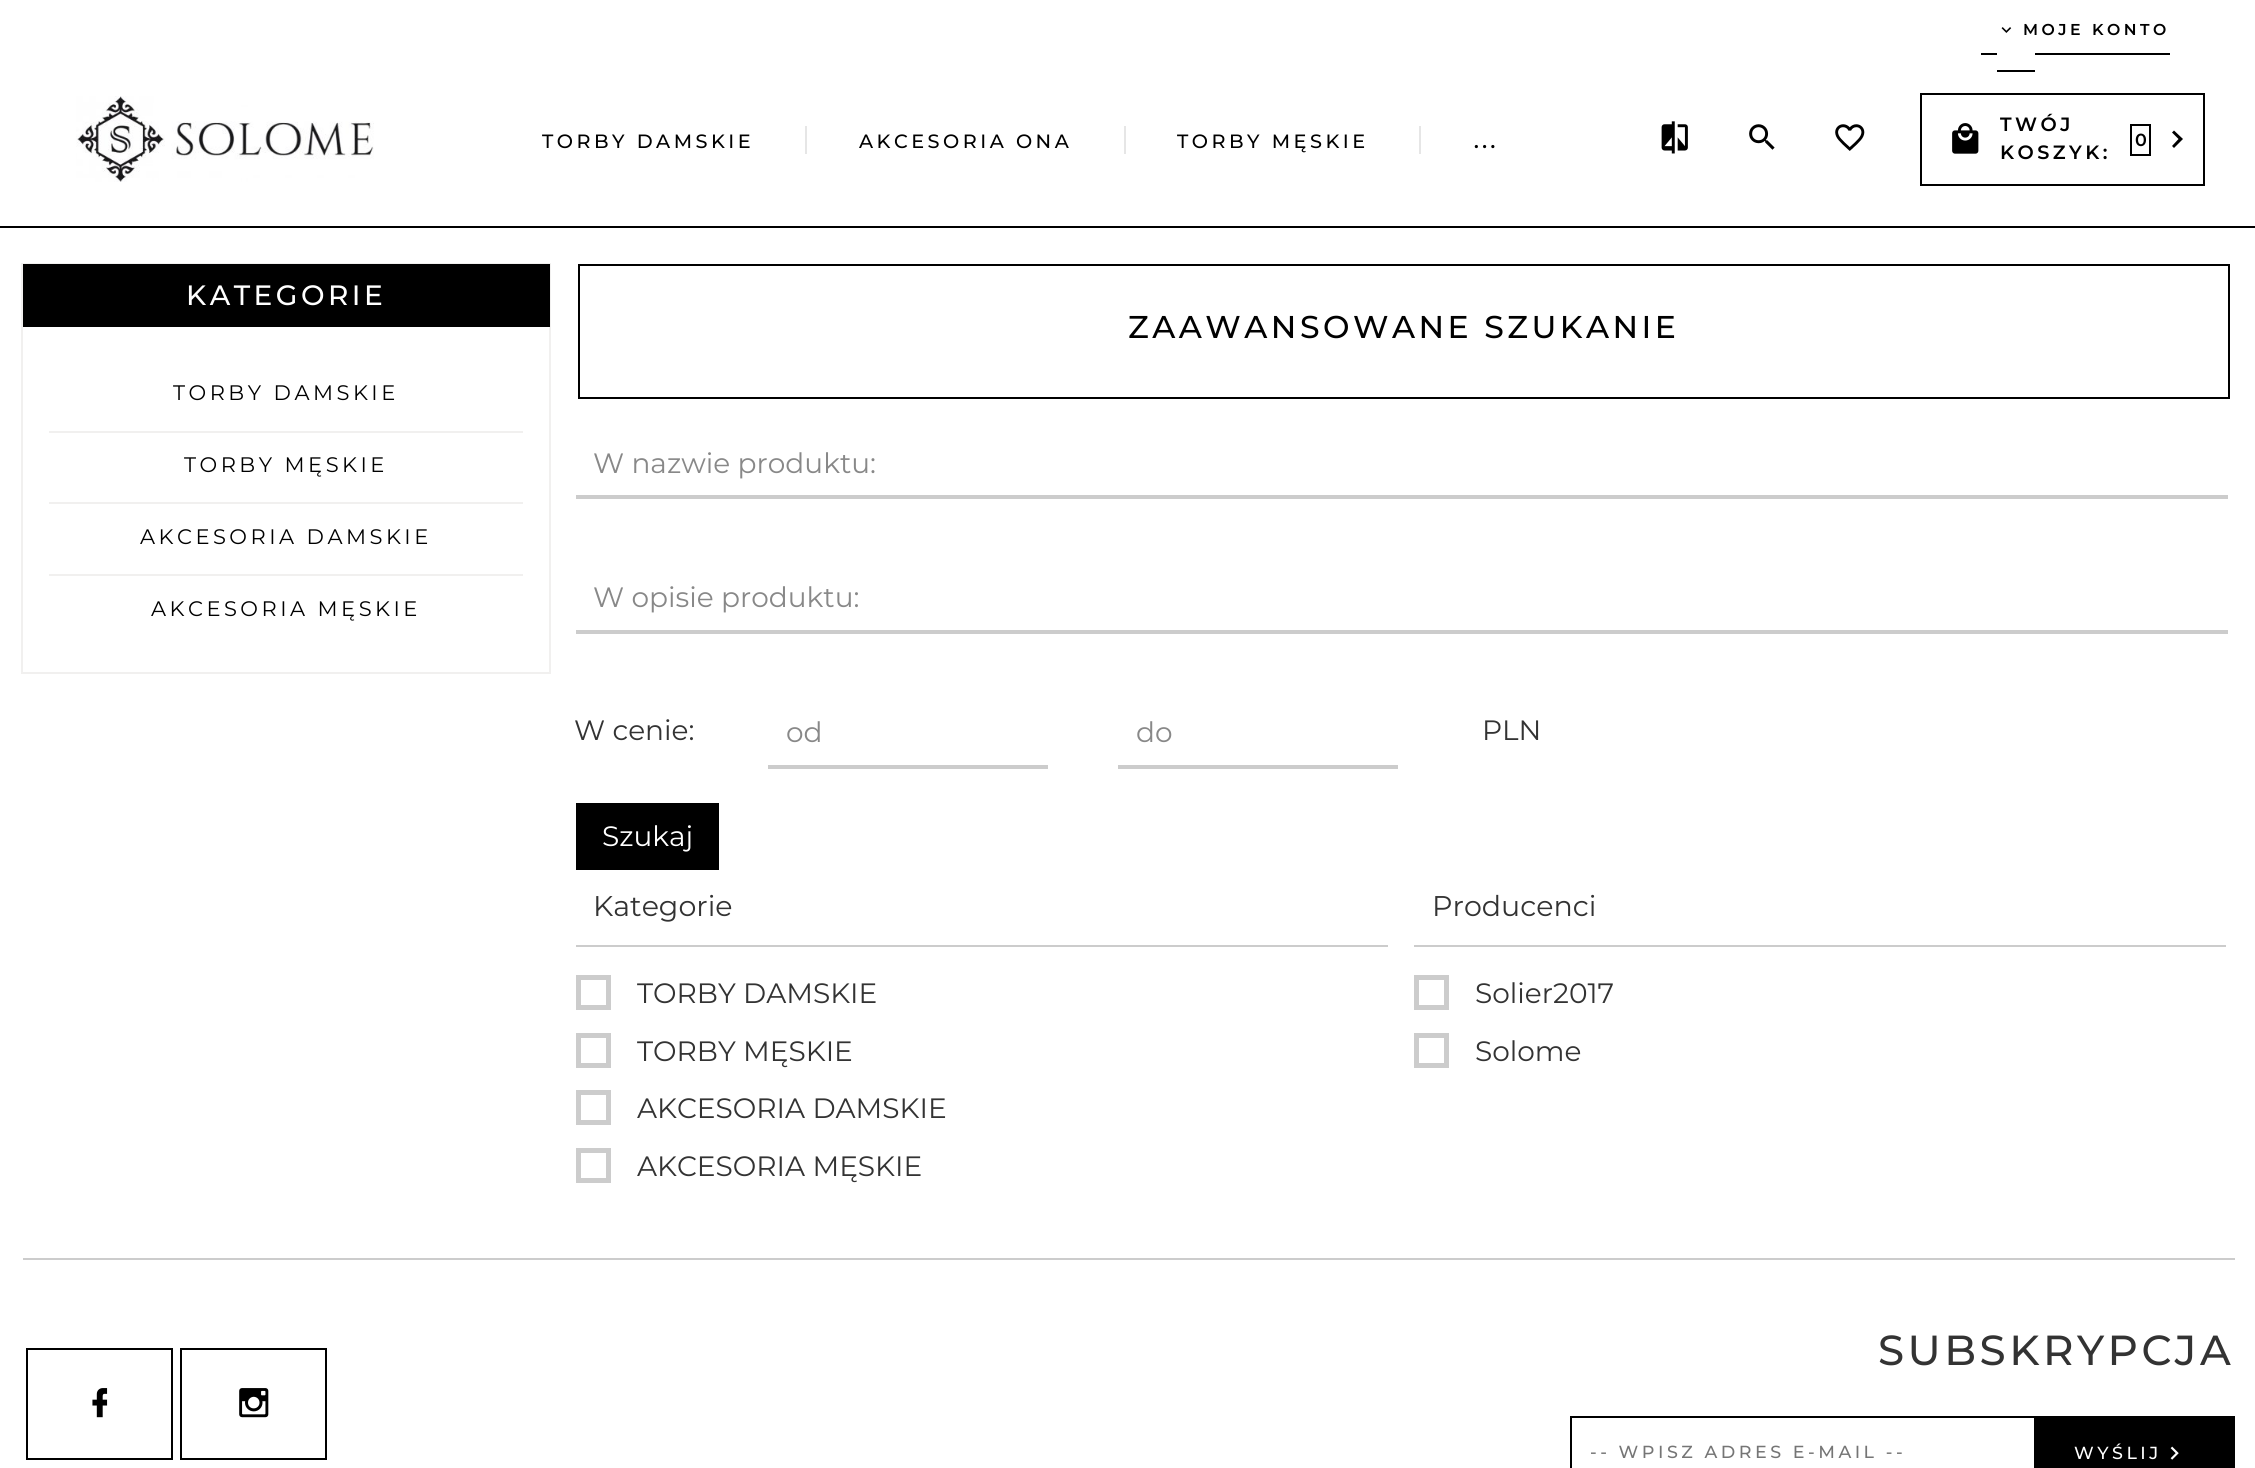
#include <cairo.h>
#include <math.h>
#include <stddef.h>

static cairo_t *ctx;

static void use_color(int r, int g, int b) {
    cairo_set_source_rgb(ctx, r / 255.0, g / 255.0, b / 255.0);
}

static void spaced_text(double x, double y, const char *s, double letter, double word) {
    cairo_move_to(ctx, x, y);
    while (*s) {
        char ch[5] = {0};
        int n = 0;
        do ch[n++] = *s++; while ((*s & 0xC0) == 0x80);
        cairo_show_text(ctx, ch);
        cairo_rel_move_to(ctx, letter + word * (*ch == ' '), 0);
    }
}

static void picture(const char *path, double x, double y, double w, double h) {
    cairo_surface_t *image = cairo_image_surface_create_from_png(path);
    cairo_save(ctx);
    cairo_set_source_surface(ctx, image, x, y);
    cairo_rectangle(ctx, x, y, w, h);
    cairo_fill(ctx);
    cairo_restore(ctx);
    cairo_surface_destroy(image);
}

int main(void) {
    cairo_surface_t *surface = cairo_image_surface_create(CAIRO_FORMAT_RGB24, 2255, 1468);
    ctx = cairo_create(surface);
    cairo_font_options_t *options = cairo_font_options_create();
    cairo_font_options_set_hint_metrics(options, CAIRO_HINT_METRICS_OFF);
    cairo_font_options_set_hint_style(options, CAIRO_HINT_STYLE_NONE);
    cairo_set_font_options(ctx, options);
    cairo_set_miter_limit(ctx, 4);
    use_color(255, 255, 255);
    cairo_paint(ctx);
    use_color(0, 0, 0);
    cairo_rectangle(ctx, 1981, 53, 189, 2);
    cairo_fill(ctx);
    use_color(255, 255, 255);
    cairo_rectangle(ctx, 1997, 53, 38, 2);
    cairo_fill(ctx);
    use_color(0, 0, 0);
    cairo_rectangle(ctx, 1997, 70, 38, 2);
    cairo_fill(ctx);
    picture("img1.png", 2001, 27, 11, 6);
    cairo_select_font_face(ctx, "Montserrat SemiBold", CAIRO_FONT_SLANT_NORMAL, CAIRO_FONT_WEIGHT_NORMAL);
    cairo_set_font_size(ctx, 15.75);
    spaced_text(2023, 35, "MOJE KONTO", 3.5, 0);
    cairo_rectangle(ctx, 0, 226, 2255, 2);
    cairo_fill(ctx);
    picture("img2.png", 76, 96, 298, 86);
    cairo_select_font_face(ctx, "Montserrat Medium", CAIRO_FONT_SLANT_NORMAL, CAIRO_FONT_WEIGHT_NORMAL);
    cairo_set_font_size(ctx, 19.25);
    spaced_text(542, 148, "TORBY DAMSKIE", 3.5, 0);
    use_color(230, 230, 230);
    cairo_rectangle(ctx, 805, 126, 2, 28);
    cairo_fill(ctx);
    use_color(0, 0, 0);
    spaced_text(859, 148, "AKCESORIA ONA", 3.5, 0);
    use_color(230, 230, 230);
    cairo_rectangle(ctx, 1124, 126, 2, 28);
    cairo_fill(ctx);
    use_color(0, 0, 0);
    spaced_text(1177, 148, "TORBY MĘSKIE", 3.5, 0);
    use_color(230, 230, 230);
    cairo_rectangle(ctx, 1419, 126, 2, 28);
    cairo_fill(ctx);
    cairo_select_font_face(ctx, "Montserrat SemiBold", CAIRO_FONT_SLANT_NORMAL, CAIRO_FONT_WEIGHT_NORMAL);
    use_color(0, 0, 0);
    spaced_text(1474, 148, "...", 3.5, 0);
    use_color(255, 255, 255);
    cairo_new_path(ctx);
    cairo_move_to(ctx, 1477.5, 148);
    cairo_line_to(ctx, 1484, 155);
    cairo_line_to(ctx, 1490.5, 148);
    cairo_line_to(ctx, 1493, 150);
    cairo_line_to(ctx, 1484, 159);
    cairo_line_to(ctx, 1475, 150);
    cairo_close_path(ctx);
    cairo_fill(ctx);
    picture("img3.png", 1661, 121, 27, 33);
    picture("img4.png", 1749, 124, 26, 26);
    picture("img5.png", 1835, 124, 30, 27);
    cairo_rectangle(ctx, 1921, 94, 283, 91);
    use_color(0, 0, 0);
    cairo_stroke(ctx);
    picture("img6.png", 1952, 123, 27, 31);
    spaced_text(2000, 131, "TWÓJ", 3.5, 0);
    spaced_text(2000, 159, "KOSZYK:", 3.5, 0);
    cairo_rectangle(ctx, 2131, 125, 19, 30);
    cairo_stroke(ctx);
    cairo_set_font_size(ctx, 17.5);
    cairo_move_to(ctx, 2135, 146);
    cairo_show_text(ctx, "0");
    cairo_new_path(ctx);
    cairo_move_to(ctx, 2172, 146);
    cairo_line_to(ctx, 2178.5, 139);
    cairo_line_to(ctx, 2172, 132.5);
    cairo_line_to(ctx, 2174, 130.5);
    cairo_line_to(ctx, 2183, 139);
    cairo_line_to(ctx, 2174, 148);
    cairo_close_path(ctx);
    cairo_fill(ctx);
    cairo_rectangle(ctx, 22, 264, 528, 409);
    use_color(241, 240, 239);
    cairo_stroke(ctx);
    use_color(0, 0, 0);
    cairo_rectangle(ctx, 23, 264, 527, 63);
    cairo_fill(ctx);
    cairo_select_font_face(ctx, "Montserrat Medium", CAIRO_FONT_SLANT_NORMAL, CAIRO_FONT_WEIGHT_NORMAL);
    cairo_set_font_size(ctx, 28);
    use_color(255, 255, 255);
    spaced_text(186, 305, "KATEGORIE", 3.5, 0);
    cairo_select_font_face(ctx, "Montserrat", CAIRO_FONT_SLANT_NORMAL, CAIRO_FONT_WEIGHT_NORMAL);
    cairo_set_font_size(ctx, 21);
    use_color(0, 0, 0);
    spaced_text(173, 400, "TORBY DAMSKIE", 3.5, 0);
    use_color(241, 240, 239);
    cairo_rectangle(ctx, 49, 431, 474, 2);
    cairo_fill(ctx);
    use_color(0, 0, 0);
    spaced_text(184, 472, "TORBY MĘSKIE", 3.5, 0);
    use_color(241, 240, 239);
    cairo_rectangle(ctx, 49, 502, 474, 2);
    cairo_fill(ctx);
    use_color(0, 0, 0);
    spaced_text(140, 544, "AKCESORIA DAMSKIE", 3.5, 0);
    use_color(241, 240, 239);
    cairo_rectangle(ctx, 49, 574, 474, 2);
    cairo_fill(ctx);
    use_color(0, 0, 0);
    spaced_text(151, 616, "AKCESORIA MĘSKIE", 3.5, 0);
    cairo_rectangle(ctx, 579, 265, 1650, 133);
    cairo_stroke(ctx);
    cairo_select_font_face(ctx, "Montserrat Medium", CAIRO_FONT_SLANT_NORMAL, CAIRO_FONT_WEIGHT_NORMAL);
    cairo_set_font_size(ctx, 31.5);
    spaced_text(1128, 338, "ZAAWANSOWANE SZUKANIE", 3.5, 0);
    use_color(204, 204, 204);
    cairo_rectangle(ctx, 576, 495, 1652, 4);
    cairo_fill(ctx);
    cairo_select_font_face(ctx, "Montserrat", CAIRO_FONT_SLANT_NORMAL, CAIRO_FONT_WEIGHT_NORMAL);
    cairo_set_font_size(ctx, 28);
    use_color(136, 136, 136);
    cairo_move_to(ctx, 593, 473);
    cairo_show_text(ctx, "W nazwie produktu:");
    use_color(204, 204, 204);
    cairo_rectangle(ctx, 576, 630, 1652, 4);
    cairo_fill(ctx);
    use_color(136, 136, 136);
    cairo_move_to(ctx, 593, 607);
    cairo_show_text(ctx, "W opisie produktu:");
    use_color(51, 51, 51);
    cairo_move_to(ctx, 574, 740);
    cairo_show_text(ctx, "W cenie:");
    use_color(204, 204, 204);
    cairo_rectangle(ctx, 768, 765, 280, 4);
    cairo_fill(ctx);
    use_color(136, 136, 136);
    cairo_move_to(ctx, 786, 742);
    cairo_show_text(ctx, "od");
    use_color(204, 204, 204);
    cairo_rectangle(ctx, 1118, 765, 280, 4);
    cairo_fill(ctx);
    use_color(136, 136, 136);
    cairo_move_to(ctx, 1136, 742);
    cairo_show_text(ctx, "do");
    use_color(51, 51, 51);
    cairo_move_to(ctx, 1482, 740);
    cairo_show_text(ctx, "PLN");
    use_color(0, 0, 0);
    cairo_rectangle(ctx, 576, 803, 143, 67);
    cairo_fill(ctx);
    use_color(255, 255, 255);
    cairo_move_to(ctx, 602, 846);
    cairo_show_text(ctx, "Szukaj");
    use_color(204, 204, 204);
    cairo_rectangle(ctx, 576, 945, 812, 2);
    cairo_fill(ctx);
    cairo_set_font_size(ctx, 28.5);
    use_color(51, 51, 51);
    cairo_move_to(ctx, 593, 916);
    cairo_show_text(ctx, "Kategorie");
    cairo_rectangle(ctx, 578.5, 977.5, 30, 30);
    use_color(204, 204, 204);
    cairo_set_line_width(ctx, 5);
    cairo_stroke(ctx);
    cairo_set_font_size(ctx, 28);
    use_color(51, 51, 51);
    cairo_move_to(ctx, 637, 1003);
    cairo_show_text(ctx, "TORBY DAMSKIE");
    cairo_rectangle(ctx, 578.5, 1035.5, 30, 30);
    use_color(204, 204, 204);
    cairo_stroke(ctx);
    use_color(51, 51, 51);
    cairo_move_to(ctx, 637, 1061);
    cairo_show_text(ctx, "TORBY MĘSKIE");
    cairo_rectangle(ctx, 578.5, 1092.5, 30, 30);
    use_color(204, 204, 204);
    cairo_stroke(ctx);
    use_color(51, 51, 51);
    cairo_move_to(ctx, 637, 1118);
    cairo_show_text(ctx, "AKCESORIA DAMSKIE");
    cairo_rectangle(ctx, 578.5, 1150.5, 30, 30);
    use_color(204, 204, 204);
    cairo_stroke(ctx);
    use_color(51, 51, 51);
    cairo_move_to(ctx, 637, 1176);
    cairo_show_text(ctx, "AKCESORIA MĘSKIE");
    use_color(204, 204, 204);
    cairo_rectangle(ctx, 1414, 945, 812, 2);
    cairo_fill(ctx);
    cairo_set_font_size(ctx, 28.5);
    use_color(51, 51, 51);
    cairo_move_to(ctx, 1432, 916);
    cairo_show_text(ctx, "Producenci");
    cairo_rectangle(ctx, 1416.5, 977.5, 30, 30);
    use_color(204, 204, 204);
    cairo_stroke(ctx);
    cairo_set_font_size(ctx, 28);
    use_color(51, 51, 51);
    cairo_move_to(ctx, 1475, 1003);
    cairo_show_text(ctx, "Solier2017");
    cairo_rectangle(ctx, 1416.5, 1035.5, 30, 30);
    use_color(204, 204, 204);
    cairo_stroke(ctx);
    use_color(51, 51, 51);
    cairo_move_to(ctx, 1475, 1061);
    cairo_show_text(ctx, "Solome");
    use_color(204, 204, 204);
    cairo_rectangle(ctx, 23, 1258, 2212, 2);
    cairo_fill(ctx);
    cairo_rectangle(ctx, 27, 1349, 145, 110);
    use_color(0, 0, 0);
    cairo_set_line_width(ctx, 2);
    cairo_stroke(ctx);
    picture("img7.png", 92, 1388, 16, 30);
    cairo_rectangle(ctx, 181, 1349, 145, 110);
    cairo_stroke(ctx);
    picture("img8.png", 239, 1388, 30, 30);
    cairo_select_font_face(ctx, "Montserrat Medium", CAIRO_FONT_SLANT_NORMAL, CAIRO_FONT_WEIGHT_NORMAL);
    cairo_set_font_size(ctx, 42);
    use_color(51, 51, 51);
    spaced_text(1878, 1365, "SUBSKRYPCJA", 3.5, 0);
    cairo_rectangle(ctx, 1571, 1417, 663, 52);
    use_color(0, 0, 0);
    cairo_stroke(ctx);
    cairo_set_font_size(ctx, 17.5);
    use_color(117, 117, 117);
    spaced_text(1590, 1458, "-- WPISZ ADRES E-MAIL --", 3.5, 0);
    use_color(0, 0, 0);
    cairo_rectangle(ctx, 2034, 1418, 199, 50);
    cairo_fill(ctx);
    use_color(255, 255, 255);
    spaced_text(2074, 1459, "WYŚLIJ", 3.5, 0);
    picture("img9.png", 2170, 1446, 9, 14);
    cairo_surface_write_to_png(surface, "result.png");
    cairo_font_options_destroy(options);
    cairo_destroy(ctx);
    cairo_surface_destroy(surface);
    return 0;
}
